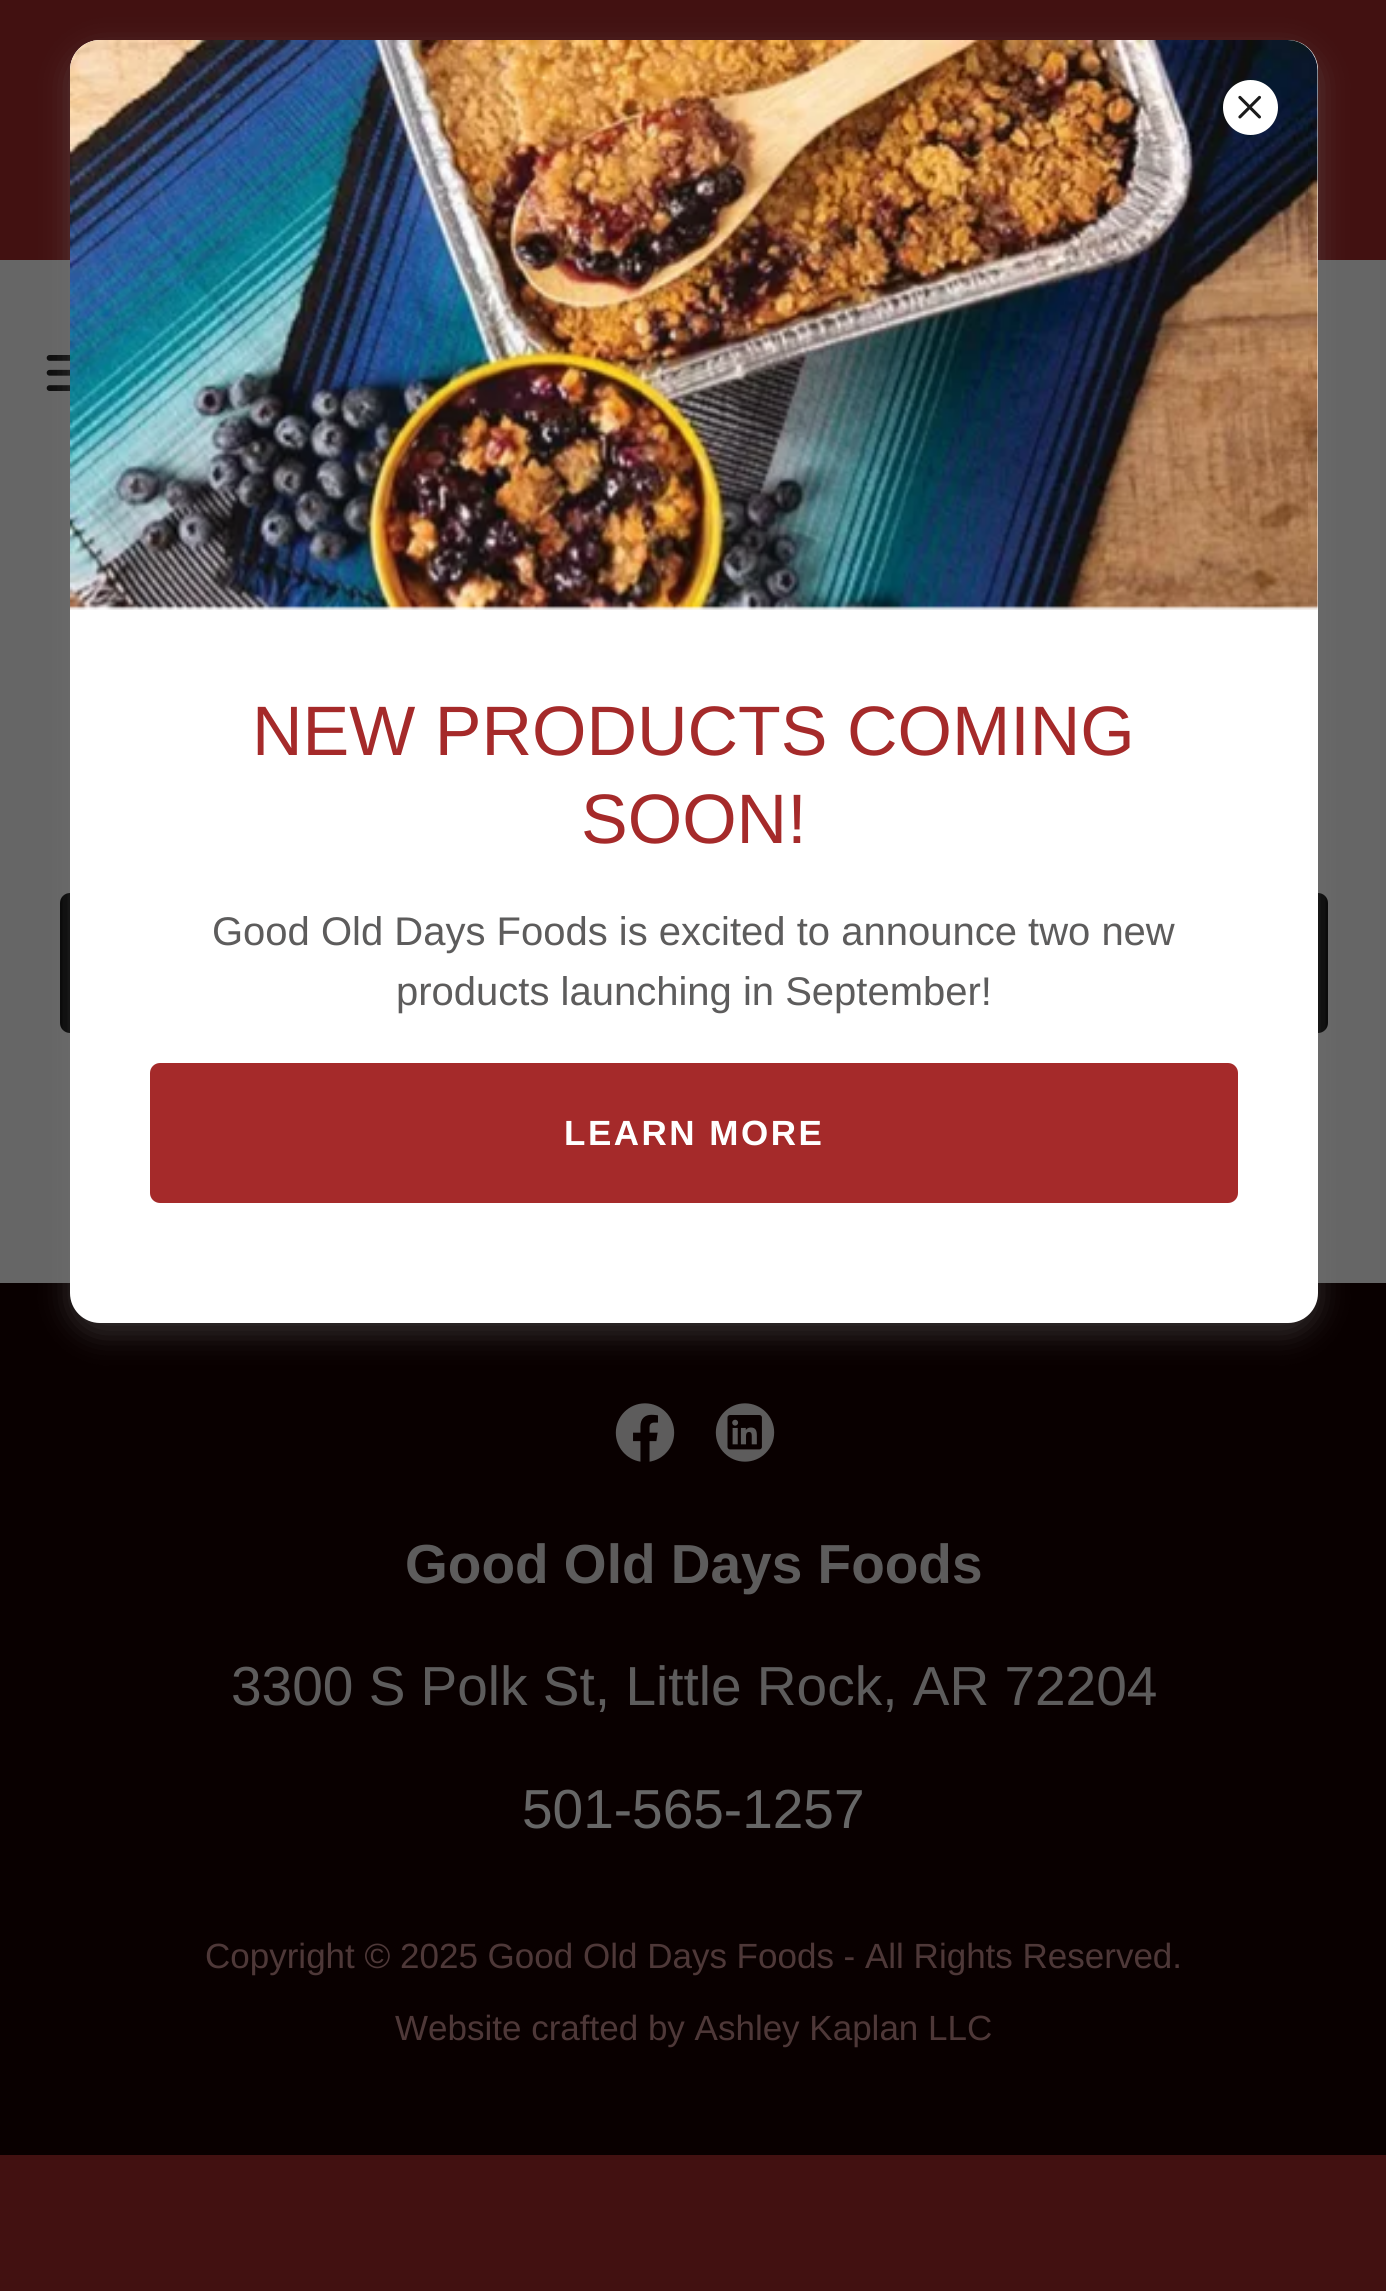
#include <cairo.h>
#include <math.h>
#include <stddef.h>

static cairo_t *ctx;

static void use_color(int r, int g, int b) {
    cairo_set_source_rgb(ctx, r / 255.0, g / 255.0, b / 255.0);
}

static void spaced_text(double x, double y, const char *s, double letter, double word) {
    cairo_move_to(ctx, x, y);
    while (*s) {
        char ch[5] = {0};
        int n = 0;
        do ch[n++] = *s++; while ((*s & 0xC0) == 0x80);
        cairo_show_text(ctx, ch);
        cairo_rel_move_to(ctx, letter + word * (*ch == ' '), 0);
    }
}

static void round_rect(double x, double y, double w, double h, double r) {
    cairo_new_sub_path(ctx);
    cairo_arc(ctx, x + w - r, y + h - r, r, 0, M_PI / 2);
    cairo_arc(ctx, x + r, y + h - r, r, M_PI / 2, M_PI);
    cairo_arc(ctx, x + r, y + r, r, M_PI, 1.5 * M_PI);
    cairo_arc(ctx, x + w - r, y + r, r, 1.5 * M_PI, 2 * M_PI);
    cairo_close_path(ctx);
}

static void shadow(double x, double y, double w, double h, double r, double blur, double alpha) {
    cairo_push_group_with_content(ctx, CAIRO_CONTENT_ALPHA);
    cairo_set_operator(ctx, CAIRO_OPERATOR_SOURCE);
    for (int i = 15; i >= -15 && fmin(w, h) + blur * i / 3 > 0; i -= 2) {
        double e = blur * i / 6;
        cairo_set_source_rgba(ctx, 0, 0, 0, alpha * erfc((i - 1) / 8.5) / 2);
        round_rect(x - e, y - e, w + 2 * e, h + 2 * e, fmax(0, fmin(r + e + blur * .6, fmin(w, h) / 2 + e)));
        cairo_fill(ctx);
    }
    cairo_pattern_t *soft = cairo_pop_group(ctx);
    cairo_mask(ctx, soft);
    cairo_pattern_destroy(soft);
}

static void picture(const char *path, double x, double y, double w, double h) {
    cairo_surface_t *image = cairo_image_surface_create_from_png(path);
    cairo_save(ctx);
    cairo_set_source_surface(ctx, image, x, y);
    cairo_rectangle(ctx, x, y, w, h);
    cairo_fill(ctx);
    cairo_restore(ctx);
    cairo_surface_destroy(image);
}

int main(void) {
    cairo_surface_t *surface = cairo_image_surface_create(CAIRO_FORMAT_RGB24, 1386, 2291);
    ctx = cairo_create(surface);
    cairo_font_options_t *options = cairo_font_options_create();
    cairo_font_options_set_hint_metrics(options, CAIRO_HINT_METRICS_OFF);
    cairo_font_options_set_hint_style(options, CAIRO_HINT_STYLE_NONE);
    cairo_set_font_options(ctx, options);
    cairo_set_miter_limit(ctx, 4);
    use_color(66, 17, 17);
    cairo_paint(ctx);
    use_color(102, 102, 102);
    cairo_rectangle(ctx, 0, 260, 1386, 1023);
    cairo_fill(ctx);
    picture("img1.png", 46, 355, 24, 36);
    use_color(0, 0, 0);
    round_rect(60, 893, 1268, 140, 10);
    cairo_fill(ctx);
    use_color(9, 0, 0);
    cairo_rectangle(ctx, 0, 1283, 1386, 872);
    cairo_fill(ctx);
    use_color(117, 117, 117);
    shadow(70, 50, 1248, 1283, 30, 15, 0.4);
    use_color(255, 255, 255);
    round_rect(70, 40, 1248, 1283, 30);
    cairo_fill(ctx);
    picture("img3.png", 70, 40, 1248, 570);
    cairo_arc(ctx, 1250.5, 107.5, 27.5, 0, 2 * M_PI);
    cairo_fill(ctx);
    picture("img2.png", 1238, 95, 23, 24);
    cairo_select_font_face(ctx, "Liberation Sans", CAIRO_FONT_SLANT_NORMAL, CAIRO_FONT_WEIGHT_NORMAL);
    cairo_set_font_size(ctx, 70);
    use_color(165, 42, 42);
    cairo_move_to(ctx, 252, 755);
    cairo_show_text(ctx, "NEW PRODUCTS COMING");
    cairo_move_to(ctx, 581, 843);
    cairo_show_text(ctx, "SOON!");
    cairo_set_font_size(ctx, 40);
    use_color(93, 92, 92);
    cairo_move_to(ctx, 212, 945);
    cairo_show_text(ctx, "Good Old Days Foods is excited to announce two new");
    cairo_move_to(ctx, 396, 1005);
    cairo_show_text(ctx, "products launching in September!");
    use_color(165, 42, 42);
    round_rect(150, 1063, 1088, 140, 10);
    cairo_fill(ctx);
    cairo_select_font_face(ctx, "Liberation Sans", CAIRO_FONT_SLANT_NORMAL, CAIRO_FONT_WEIGHT_BOLD);
    cairo_set_font_size(ctx, 35);
    use_color(255, 255, 255);
    spaced_text(564, 1145, "LEARN MORE", 2.5, 0);
    picture("img4.png", 615, 1403, 60, 59);
    picture("img5.png", 715, 1403, 60, 59);
    cairo_set_font_size(ctx, 55);
    use_color(93, 92, 92);
    cairo_move_to(ctx, 405, 1583);
    cairo_show_text(ctx, "Good Old Days Foods");
    cairo_select_font_face(ctx, "Liberation Sans", CAIRO_FONT_SLANT_NORMAL, CAIRO_FONT_WEIGHT_NORMAL);
    cairo_move_to(ctx, 231, 1705);
    cairo_show_text(ctx, "3300 S Polk St, Little Rock, AR 72204");
    use_color(102, 102, 102);
    cairo_move_to(ctx, 522, 1828);
    cairo_show_text(ctx, "501-565-1257");
    cairo_set_font_size(ctx, 35);
    use_color(78, 56, 56);
    cairo_move_to(ctx, 205, 1968);
    cairo_show_text(ctx, "Copyright © 2025 Good Old Days Foods - All Rights Reserved.");
    cairo_move_to(ctx, 395, 2040);
    cairo_show_text(ctx, "Website crafted by Ashley Kaplan LLC");
    cairo_surface_write_to_png(surface, "result.png");
    cairo_font_options_destroy(options);
    cairo_destroy(ctx);
    cairo_surface_destroy(surface);
    return 0;
}
